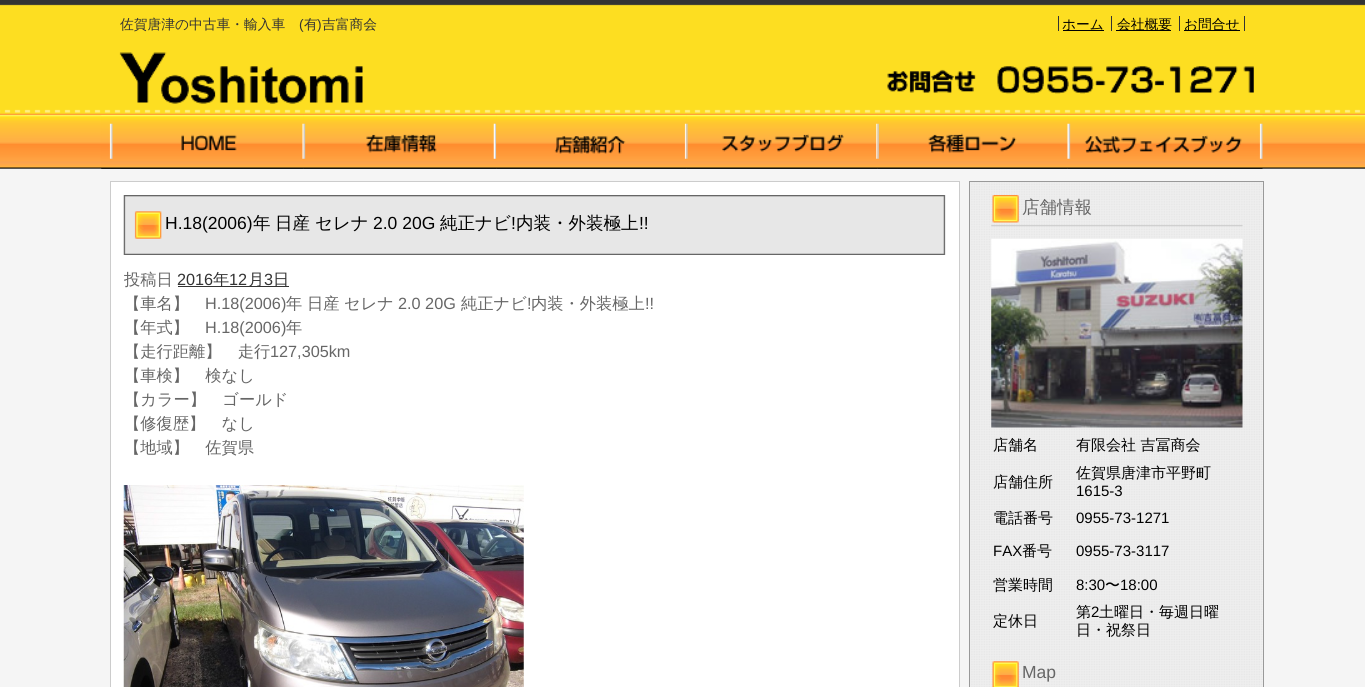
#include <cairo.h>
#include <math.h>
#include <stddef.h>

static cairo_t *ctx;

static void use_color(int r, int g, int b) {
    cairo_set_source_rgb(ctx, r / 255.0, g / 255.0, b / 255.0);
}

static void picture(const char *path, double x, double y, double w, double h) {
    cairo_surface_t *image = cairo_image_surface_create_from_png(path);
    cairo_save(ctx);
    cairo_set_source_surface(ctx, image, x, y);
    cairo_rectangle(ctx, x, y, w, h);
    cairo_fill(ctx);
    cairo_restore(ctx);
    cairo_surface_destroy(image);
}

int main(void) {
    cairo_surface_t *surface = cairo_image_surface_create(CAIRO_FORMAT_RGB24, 1365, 687);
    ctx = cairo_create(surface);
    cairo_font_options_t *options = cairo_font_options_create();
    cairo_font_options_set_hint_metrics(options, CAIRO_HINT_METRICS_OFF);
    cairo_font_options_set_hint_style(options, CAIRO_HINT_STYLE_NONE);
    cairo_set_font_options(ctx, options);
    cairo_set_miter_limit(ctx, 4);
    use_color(245, 245, 245);
    cairo_paint(ctx);
    picture("img1.png", 0, 0, 1365, 169);
    cairo_select_font_face(ctx, "WenQuanYi Zen Hei Medium", CAIRO_FONT_SLANT_NORMAL, CAIRO_FONT_WEIGHT_NORMAL);
    cairo_set_font_size(ctx, 13.75);
    use_color(51, 51, 51);
    cairo_move_to(ctx, 120, 29);
    cairo_show_text(ctx, "佐賀唐津の中古車・輸入車");
    cairo_select_font_face(ctx, "Liberation Sans", CAIRO_FONT_SLANT_NORMAL, CAIRO_FONT_WEIGHT_NORMAL);
    cairo_move_to(ctx, 299, 29);
    cairo_show_text(ctx, "(");
    cairo_select_font_face(ctx, "WenQuanYi Zen Hei Medium", CAIRO_FONT_SLANT_NORMAL, CAIRO_FONT_WEIGHT_NORMAL);
    cairo_move_to(ctx, 304, 29);
    cairo_show_text(ctx, "有");
    cairo_select_font_face(ctx, "Liberation Sans", CAIRO_FONT_SLANT_NORMAL, CAIRO_FONT_WEIGHT_NORMAL);
    cairo_move_to(ctx, 317, 29);
    cairo_show_text(ctx, ")");
    cairo_select_font_face(ctx, "WenQuanYi Zen Hei Medium", CAIRO_FONT_SLANT_NORMAL, CAIRO_FONT_WEIGHT_NORMAL);
    cairo_move_to(ctx, 322, 29);
    cairo_show_text(ctx, "吉富商会");
    use_color(0, 0, 0);
    cairo_rectangle(ctx, 1063, 30, 41, 1);
    cairo_fill(ctx);
    cairo_move_to(ctx, 1062, 29);
    cairo_show_text(ctx, "ホーム");
    use_color(51, 51, 51);
    cairo_rectangle(ctx, 1058, 16, 1, 15);
    cairo_fill(ctx);
    use_color(0, 0, 0);
    cairo_rectangle(ctx, 1116, 30, 55, 1);
    cairo_fill(ctx);
    cairo_move_to(ctx, 1117, 29);
    cairo_show_text(ctx, "会社概要");
    use_color(51, 51, 51);
    cairo_rectangle(ctx, 1111, 16, 1, 15);
    cairo_fill(ctx);
    use_color(0, 0, 0);
    cairo_rectangle(ctx, 1184, 30, 56, 1);
    cairo_fill(ctx);
    cairo_move_to(ctx, 1184, 29);
    cairo_show_text(ctx, "お問合せ");
    use_color(51, 51, 51);
    cairo_rectangle(ctx, 1244, 16, 1, 15);
    cairo_fill(ctx);
    cairo_rectangle(ctx, 1179, 16, 1, 15);
    cairo_fill(ctx);
    picture("img2.png", 119, 52, 244, 52);
    picture("img3.png", 887, 66, 367, 28);
    picture("img4.png", 101, 115, 203, 54);
    picture("img5.png", 303, 115, 194, 54);
    picture("img6.png", 496, 115, 191, 54);
    picture("img7.png", 686, 115, 192, 54);
    picture("img8.png", 877, 115, 191, 54);
    picture("img9.png", 1067, 115, 196, 54);
    use_color(255, 255, 255);
    cairo_rectangle(ctx, 110.5, 181.5, 849, 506);
    cairo_fill_preserve(ctx);
    use_color(204, 204, 204);
    cairo_set_line_width(ctx, 1);
    cairo_stroke(ctx);
    picture("img10.png", 123, 195, 823, 60);
    cairo_select_font_face(ctx, "Liberation Sans", CAIRO_FONT_SLANT_NORMAL, CAIRO_FONT_WEIGHT_NORMAL);
    cairo_set_font_size(ctx, 17.5);
    use_color(0, 0, 0);
    cairo_move_to(ctx, 165, 229);
    cairo_show_text(ctx, "H.18(2006)");
    cairo_select_font_face(ctx, "WenQuanYi Zen Hei Medium", CAIRO_FONT_SLANT_NORMAL, CAIRO_FONT_WEIGHT_NORMAL);
    cairo_move_to(ctx, 253, 229);
    cairo_show_text(ctx, "年");
    cairo_move_to(ctx, 275, 229);
    cairo_show_text(ctx, "日産");
    cairo_move_to(ctx, 315, 229);
    cairo_show_text(ctx, "セレナ");
    cairo_select_font_face(ctx, "Liberation Sans", CAIRO_FONT_SLANT_NORMAL, CAIRO_FONT_WEIGHT_NORMAL);
    cairo_move_to(ctx, 373, 229);
    cairo_show_text(ctx, "2.0 20G");
    cairo_select_font_face(ctx, "WenQuanYi Zen Hei Medium", CAIRO_FONT_SLANT_NORMAL, CAIRO_FONT_WEIGHT_NORMAL);
    cairo_move_to(ctx, 440, 229);
    cairo_show_text(ctx, "純正ナビ");
    cairo_select_font_face(ctx, "Liberation Sans", CAIRO_FONT_SLANT_NORMAL, CAIRO_FONT_WEIGHT_NORMAL);
    cairo_move_to(ctx, 511, 229);
    cairo_show_text(ctx, "!");
    cairo_select_font_face(ctx, "WenQuanYi Zen Hei Medium", CAIRO_FONT_SLANT_NORMAL, CAIRO_FONT_WEIGHT_NORMAL);
    cairo_move_to(ctx, 516, 229);
    cairo_show_text(ctx, "内装・外装極上");
    cairo_select_font_face(ctx, "Liberation Sans", CAIRO_FONT_SLANT_NORMAL, CAIRO_FONT_WEIGHT_NORMAL);
    cairo_move_to(ctx, 639, 229);
    cairo_show_text(ctx, "!!");
    cairo_select_font_face(ctx, "WenQuanYi Zen Hei Medium", CAIRO_FONT_SLANT_NORMAL, CAIRO_FONT_WEIGHT_NORMAL);
    cairo_set_font_size(ctx, 16.25);
    use_color(102, 102, 102);
    cairo_move_to(ctx, 124, 285);
    cairo_show_text(ctx, "投稿日");
    cairo_select_font_face(ctx, "Liberation Sans", CAIRO_FONT_SLANT_NORMAL, CAIRO_FONT_WEIGHT_NORMAL);
    use_color(51, 51, 51);
    cairo_move_to(ctx, 177, 285);
    cairo_show_text(ctx, "2016");
    cairo_rectangle(ctx, 178, 286, 111, 1);
    cairo_fill(ctx);
    cairo_select_font_face(ctx, "WenQuanYi Zen Hei Medium", CAIRO_FONT_SLANT_NORMAL, CAIRO_FONT_WEIGHT_NORMAL);
    cairo_move_to(ctx, 213, 285);
    cairo_show_text(ctx, "年");
    cairo_select_font_face(ctx, "Liberation Sans", CAIRO_FONT_SLANT_NORMAL, CAIRO_FONT_WEIGHT_NORMAL);
    cairo_move_to(ctx, 229, 285);
    cairo_show_text(ctx, "12");
    cairo_select_font_face(ctx, "WenQuanYi Zen Hei Medium", CAIRO_FONT_SLANT_NORMAL, CAIRO_FONT_WEIGHT_NORMAL);
    cairo_move_to(ctx, 248, 285);
    cairo_show_text(ctx, "月");
    cairo_select_font_face(ctx, "Liberation Sans", CAIRO_FONT_SLANT_NORMAL, CAIRO_FONT_WEIGHT_NORMAL);
    cairo_move_to(ctx, 264, 285);
    cairo_show_text(ctx, "3");
    cairo_select_font_face(ctx, "WenQuanYi Zen Hei Medium", CAIRO_FONT_SLANT_NORMAL, CAIRO_FONT_WEIGHT_NORMAL);
    cairo_move_to(ctx, 273, 285);
    cairo_show_text(ctx, "日");
    use_color(102, 102, 102);
    cairo_move_to(ctx, 124, 309);
    cairo_show_text(ctx, "【車名】");
    cairo_select_font_face(ctx, "Liberation Sans", CAIRO_FONT_SLANT_NORMAL, CAIRO_FONT_WEIGHT_NORMAL);
    cairo_move_to(ctx, 205, 309);
    cairo_show_text(ctx, "H.18(2006)");
    cairo_select_font_face(ctx, "WenQuanYi Zen Hei Medium", CAIRO_FONT_SLANT_NORMAL, CAIRO_FONT_WEIGHT_NORMAL);
    cairo_move_to(ctx, 286, 309);
    cairo_show_text(ctx, "年");
    cairo_move_to(ctx, 307, 309);
    cairo_show_text(ctx, "日産");
    cairo_move_to(ctx, 344, 309);
    cairo_show_text(ctx, "セレナ");
    cairo_select_font_face(ctx, "Liberation Sans", CAIRO_FONT_SLANT_NORMAL, CAIRO_FONT_WEIGHT_NORMAL);
    cairo_move_to(ctx, 398, 309);
    cairo_show_text(ctx, "2.0 20G");
    cairo_select_font_face(ctx, "WenQuanYi Zen Hei Medium", CAIRO_FONT_SLANT_NORMAL, CAIRO_FONT_WEIGHT_NORMAL);
    cairo_move_to(ctx, 461, 309);
    cairo_show_text(ctx, "純正ナビ");
    cairo_select_font_face(ctx, "Liberation Sans", CAIRO_FONT_SLANT_NORMAL, CAIRO_FONT_WEIGHT_NORMAL);
    cairo_move_to(ctx, 527, 309);
    cairo_show_text(ctx, "!");
    cairo_select_font_face(ctx, "WenQuanYi Zen Hei Medium", CAIRO_FONT_SLANT_NORMAL, CAIRO_FONT_WEIGHT_NORMAL);
    cairo_move_to(ctx, 531, 309);
    cairo_show_text(ctx, "内装・外装極上");
    cairo_select_font_face(ctx, "Liberation Sans", CAIRO_FONT_SLANT_NORMAL, CAIRO_FONT_WEIGHT_NORMAL);
    cairo_move_to(ctx, 645, 309);
    cairo_show_text(ctx, "!!");
    cairo_select_font_face(ctx, "WenQuanYi Zen Hei Medium", CAIRO_FONT_SLANT_NORMAL, CAIRO_FONT_WEIGHT_NORMAL);
    cairo_move_to(ctx, 124, 333);
    cairo_show_text(ctx, "【年式】");
    cairo_select_font_face(ctx, "Liberation Sans", CAIRO_FONT_SLANT_NORMAL, CAIRO_FONT_WEIGHT_NORMAL);
    cairo_move_to(ctx, 205, 333);
    cairo_show_text(ctx, "H.18(2006)");
    cairo_select_font_face(ctx, "WenQuanYi Zen Hei Medium", CAIRO_FONT_SLANT_NORMAL, CAIRO_FONT_WEIGHT_NORMAL);
    cairo_move_to(ctx, 286, 333);
    cairo_show_text(ctx, "年");
    cairo_move_to(ctx, 124, 357);
    cairo_show_text(ctx, "【走行距離】　走行");
    cairo_select_font_face(ctx, "Liberation Sans", CAIRO_FONT_SLANT_NORMAL, CAIRO_FONT_WEIGHT_NORMAL);
    cairo_move_to(ctx, 270, 357);
    cairo_show_text(ctx, "127,305km");
    cairo_select_font_face(ctx, "WenQuanYi Zen Hei Medium", CAIRO_FONT_SLANT_NORMAL, CAIRO_FONT_WEIGHT_NORMAL);
    cairo_move_to(ctx, 124, 381);
    cairo_show_text(ctx, "【車検】　検なし");
    cairo_move_to(ctx, 124, 405);
    cairo_show_text(ctx, "【カラー】　ゴールド");
    cairo_move_to(ctx, 124, 429);
    cairo_show_text(ctx, "【修復歴】　なし");
    cairo_move_to(ctx, 124, 453);
    cairo_show_text(ctx, "【地域】　佐賀県");
    picture("img11.png", 123, 485, 401, 202);
    picture("img12.png", 970, 182, 293, 505);
    cairo_rectangle(ctx, 969.5, 181.5, 294, 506);
    use_color(153, 153, 153);
    cairo_stroke(ctx);
    picture("img13.png", 991, 195, 252, 32);
    cairo_set_font_size(ctx, 17.5);
    use_color(102, 102, 102);
    cairo_move_to(ctx, 1022, 213);
    cairo_show_text(ctx, "店舗情報");
    picture("img14.png", 991, 238, 252, 190);
    cairo_set_font_size(ctx, 15);
    use_color(0, 0, 0);
    cairo_move_to(ctx, 993, 450);
    cairo_show_text(ctx, "店舗名");
    cairo_move_to(ctx, 1076, 450);
    cairo_show_text(ctx, "有限会社 吉冨商会");
    cairo_move_to(ctx, 993, 487);
    cairo_show_text(ctx, "店舗住所");
    cairo_move_to(ctx, 1076, 478);
    cairo_show_text(ctx, "佐賀県唐津市平野町");
    cairo_select_font_face(ctx, "Liberation Sans", CAIRO_FONT_SLANT_NORMAL, CAIRO_FONT_WEIGHT_NORMAL);
    cairo_move_to(ctx, 1076, 496);
    cairo_show_text(ctx, "1615-3");
    cairo_select_font_face(ctx, "WenQuanYi Zen Hei Medium", CAIRO_FONT_SLANT_NORMAL, CAIRO_FONT_WEIGHT_NORMAL);
    cairo_move_to(ctx, 993, 523);
    cairo_show_text(ctx, "電話番号");
    cairo_select_font_face(ctx, "Liberation Sans", CAIRO_FONT_SLANT_NORMAL, CAIRO_FONT_WEIGHT_NORMAL);
    cairo_move_to(ctx, 1076, 523);
    cairo_show_text(ctx, "0955-73-1271");
    cairo_move_to(ctx, 993, 556);
    cairo_show_text(ctx, "FAX");
    cairo_select_font_face(ctx, "WenQuanYi Zen Hei Medium", CAIRO_FONT_SLANT_NORMAL, CAIRO_FONT_WEIGHT_NORMAL);
    cairo_move_to(ctx, 1022, 556);
    cairo_show_text(ctx, "番号");
    cairo_select_font_face(ctx, "Liberation Sans", CAIRO_FONT_SLANT_NORMAL, CAIRO_FONT_WEIGHT_NORMAL);
    cairo_move_to(ctx, 1076, 556);
    cairo_show_text(ctx, "0955-73-3117");
    cairo_select_font_face(ctx, "WenQuanYi Zen Hei Medium", CAIRO_FONT_SLANT_NORMAL, CAIRO_FONT_WEIGHT_NORMAL);
    cairo_move_to(ctx, 993, 590);
    cairo_show_text(ctx, "営業時間");
    cairo_select_font_face(ctx, "Liberation Sans", CAIRO_FONT_SLANT_NORMAL, CAIRO_FONT_WEIGHT_NORMAL);
    cairo_move_to(ctx, 1076, 590);
    cairo_show_text(ctx, "8:30");
    cairo_select_font_face(ctx, "WenQuanYi Zen Hei Medium", CAIRO_FONT_SLANT_NORMAL, CAIRO_FONT_WEIGHT_NORMAL);
    cairo_move_to(ctx, 1105, 590);
    cairo_show_text(ctx, "〜");
    cairo_select_font_face(ctx, "Liberation Sans", CAIRO_FONT_SLANT_NORMAL, CAIRO_FONT_WEIGHT_NORMAL);
    cairo_move_to(ctx, 1120, 590);
    cairo_show_text(ctx, "18:00");
    cairo_select_font_face(ctx, "WenQuanYi Zen Hei Medium", CAIRO_FONT_SLANT_NORMAL, CAIRO_FONT_WEIGHT_NORMAL);
    cairo_move_to(ctx, 993, 626);
    cairo_show_text(ctx, "定休日");
    cairo_move_to(ctx, 1076, 617);
    cairo_show_text(ctx, "第");
    cairo_select_font_face(ctx, "Liberation Sans", CAIRO_FONT_SLANT_NORMAL, CAIRO_FONT_WEIGHT_NORMAL);
    cairo_move_to(ctx, 1091, 617);
    cairo_show_text(ctx, "2");
    cairo_select_font_face(ctx, "WenQuanYi Zen Hei Medium", CAIRO_FONT_SLANT_NORMAL, CAIRO_FONT_WEIGHT_NORMAL);
    cairo_move_to(ctx, 1099, 617);
    cairo_show_text(ctx, "土曜日・毎週日曜");
    cairo_move_to(ctx, 1076, 635);
    cairo_show_text(ctx, "日・祝祭日");
    picture("img15.png", 992, 661, 27, 26);
    cairo_select_font_face(ctx, "Liberation Sans", CAIRO_FONT_SLANT_NORMAL, CAIRO_FONT_WEIGHT_NORMAL);
    cairo_set_font_size(ctx, 17.5);
    use_color(102, 102, 102);
    cairo_move_to(ctx, 1022, 678);
    cairo_show_text(ctx, "Map");
    cairo_surface_write_to_png(surface, "result.png");
    cairo_font_options_destroy(options);
    cairo_destroy(ctx);
    cairo_surface_destroy(surface);
    return 0;
}
